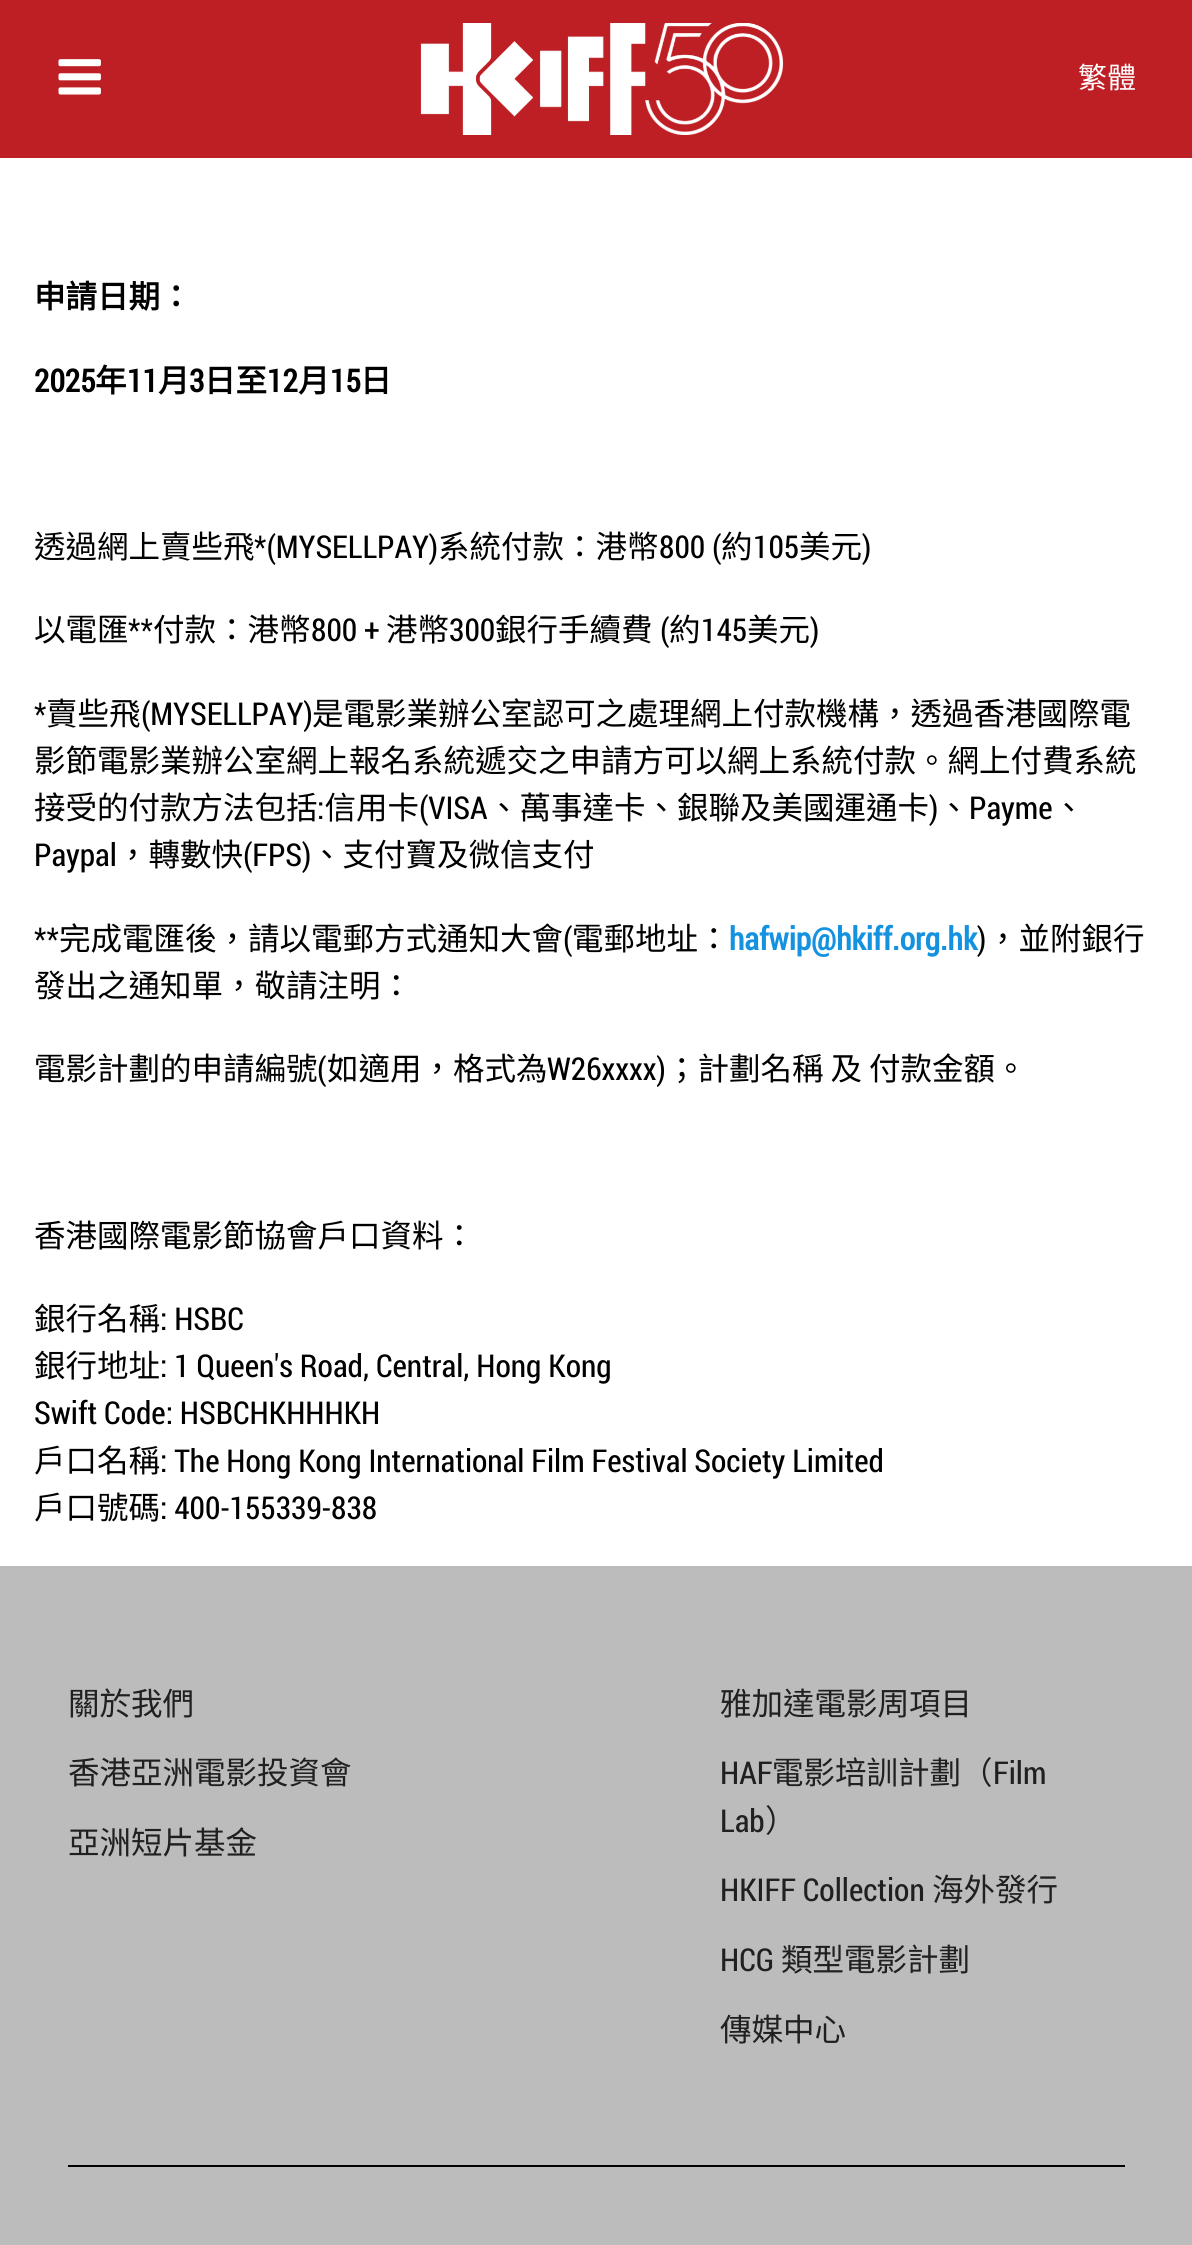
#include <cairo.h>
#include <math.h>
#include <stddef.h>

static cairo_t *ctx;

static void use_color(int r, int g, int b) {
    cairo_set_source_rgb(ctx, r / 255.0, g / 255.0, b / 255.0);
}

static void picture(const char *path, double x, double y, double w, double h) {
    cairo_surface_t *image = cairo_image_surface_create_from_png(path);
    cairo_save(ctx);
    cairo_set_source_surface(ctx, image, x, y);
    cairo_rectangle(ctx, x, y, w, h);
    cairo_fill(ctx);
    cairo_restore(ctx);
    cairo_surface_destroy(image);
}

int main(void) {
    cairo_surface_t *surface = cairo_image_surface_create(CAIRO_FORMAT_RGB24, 1192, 2245);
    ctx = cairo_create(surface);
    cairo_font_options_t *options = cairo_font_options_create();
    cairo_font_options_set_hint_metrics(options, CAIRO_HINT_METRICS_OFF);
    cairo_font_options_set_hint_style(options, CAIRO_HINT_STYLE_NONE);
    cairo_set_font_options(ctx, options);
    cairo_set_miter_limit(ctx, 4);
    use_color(255, 255, 255);
    cairo_paint(ctx);
    use_color(190, 31, 36);
    cairo_rectangle(ctx, 0, 0, 1192, 158);
    cairo_fill(ctx);
    picture("img1.png", 58, 59, 43, 36);
    picture("img2.png", 420, 23, 364, 112);
    cairo_select_font_face(ctx, "Noto Sans CJK HK", CAIRO_FONT_SLANT_NORMAL, CAIRO_FONT_WEIGHT_NORMAL);
    cairo_set_font_size(ctx, 29);
    use_color(255, 255, 255);
    cairo_move_to(ctx, 1078, 88);
    cairo_show_text(ctx, "繁體");
    cairo_select_font_face(ctx, "Noto Sans CJK HK", CAIRO_FONT_SLANT_NORMAL, CAIRO_FONT_WEIGHT_BOLD);
    cairo_set_font_size(ctx, 31.5);
    use_color(0, 0, 0);
    cairo_move_to(ctx, 34, 308);
    cairo_show_text(ctx, "申請日期：");
    cairo_select_font_face(ctx, "Roboto Condensed", CAIRO_FONT_SLANT_NORMAL, CAIRO_FONT_WEIGHT_BOLD);
    cairo_move_to(ctx, 34, 392);
    cairo_show_text(ctx, "2025");
    cairo_select_font_face(ctx, "Noto Sans CJK HK", CAIRO_FONT_SLANT_NORMAL, CAIRO_FONT_WEIGHT_BOLD);
    cairo_move_to(ctx, 95, 392);
    cairo_show_text(ctx, "年");
    cairo_select_font_face(ctx, "Roboto Condensed", CAIRO_FONT_SLANT_NORMAL, CAIRO_FONT_WEIGHT_BOLD);
    cairo_move_to(ctx, 127, 392);
    cairo_show_text(ctx, "11");
    cairo_select_font_face(ctx, "Noto Sans CJK HK", CAIRO_FONT_SLANT_NORMAL, CAIRO_FONT_WEIGHT_BOLD);
    cairo_move_to(ctx, 158, 392);
    cairo_show_text(ctx, "月");
    cairo_select_font_face(ctx, "Roboto Condensed", CAIRO_FONT_SLANT_NORMAL, CAIRO_FONT_WEIGHT_BOLD);
    cairo_move_to(ctx, 189, 392);
    cairo_show_text(ctx, "3");
    cairo_select_font_face(ctx, "Noto Sans CJK HK", CAIRO_FONT_SLANT_NORMAL, CAIRO_FONT_WEIGHT_BOLD);
    cairo_move_to(ctx, 204, 392);
    cairo_show_text(ctx, "日至");
    cairo_select_font_face(ctx, "Roboto Condensed", CAIRO_FONT_SLANT_NORMAL, CAIRO_FONT_WEIGHT_BOLD);
    cairo_move_to(ctx, 267, 392);
    cairo_show_text(ctx, "12");
    cairo_select_font_face(ctx, "Noto Sans CJK HK", CAIRO_FONT_SLANT_NORMAL, CAIRO_FONT_WEIGHT_BOLD);
    cairo_move_to(ctx, 298, 392);
    cairo_show_text(ctx, "月");
    cairo_select_font_face(ctx, "Roboto Condensed", CAIRO_FONT_SLANT_NORMAL, CAIRO_FONT_WEIGHT_BOLD);
    cairo_move_to(ctx, 330, 392);
    cairo_show_text(ctx, "15");
    cairo_select_font_face(ctx, "Noto Sans CJK HK", CAIRO_FONT_SLANT_NORMAL, CAIRO_FONT_WEIGHT_BOLD);
    cairo_move_to(ctx, 360, 392);
    cairo_show_text(ctx, "日");
    cairo_select_font_face(ctx, "Noto Sans CJK HK", CAIRO_FONT_SLANT_NORMAL, CAIRO_FONT_WEIGHT_NORMAL);
    cairo_move_to(ctx, 34, 558);
    cairo_show_text(ctx, "透過網上賣些飛");
    cairo_select_font_face(ctx, "Roboto Condensed", CAIRO_FONT_SLANT_NORMAL, CAIRO_FONT_WEIGHT_NORMAL);
    cairo_move_to(ctx, 254, 558);
    cairo_show_text(ctx, "*(MYSELLPAY)");
    cairo_select_font_face(ctx, "Noto Sans CJK HK", CAIRO_FONT_SLANT_NORMAL, CAIRO_FONT_WEIGHT_NORMAL);
    cairo_move_to(ctx, 438, 558);
    cairo_show_text(ctx, "系統付款：港幣");
    cairo_select_font_face(ctx, "Roboto Condensed", CAIRO_FONT_SLANT_NORMAL, CAIRO_FONT_WEIGHT_NORMAL);
    cairo_move_to(ctx, 659, 558);
    cairo_show_text(ctx, "800 (");
    cairo_select_font_face(ctx, "Noto Sans CJK HK", CAIRO_FONT_SLANT_NORMAL, CAIRO_FONT_WEIGHT_NORMAL);
    cairo_move_to(ctx, 721, 558);
    cairo_show_text(ctx, "約");
    cairo_select_font_face(ctx, "Roboto Condensed", CAIRO_FONT_SLANT_NORMAL, CAIRO_FONT_WEIGHT_NORMAL);
    cairo_move_to(ctx, 753, 558);
    cairo_show_text(ctx, "105");
    cairo_select_font_face(ctx, "Noto Sans CJK HK", CAIRO_FONT_SLANT_NORMAL, CAIRO_FONT_WEIGHT_NORMAL);
    cairo_move_to(ctx, 799, 558);
    cairo_show_text(ctx, "美元");
    cairo_select_font_face(ctx, "Roboto Condensed", CAIRO_FONT_SLANT_NORMAL, CAIRO_FONT_WEIGHT_NORMAL);
    cairo_move_to(ctx, 862, 558);
    cairo_show_text(ctx, ")");
    cairo_select_font_face(ctx, "Noto Sans CJK HK", CAIRO_FONT_SLANT_NORMAL, CAIRO_FONT_WEIGHT_NORMAL);
    cairo_move_to(ctx, 34, 641);
    cairo_show_text(ctx, "以電匯");
    cairo_select_font_face(ctx, "Roboto Condensed", CAIRO_FONT_SLANT_NORMAL, CAIRO_FONT_WEIGHT_NORMAL);
    cairo_move_to(ctx, 128, 641);
    cairo_show_text(ctx, "**");
    cairo_select_font_face(ctx, "Noto Sans CJK HK", CAIRO_FONT_SLANT_NORMAL, CAIRO_FONT_WEIGHT_NORMAL);
    cairo_move_to(ctx, 153, 641);
    cairo_show_text(ctx, "付款：港幣");
    cairo_select_font_face(ctx, "Roboto Condensed", CAIRO_FONT_SLANT_NORMAL, CAIRO_FONT_WEIGHT_NORMAL);
    cairo_move_to(ctx, 311, 641);
    cairo_show_text(ctx, "800 +");
    cairo_select_font_face(ctx, "Noto Sans CJK HK", CAIRO_FONT_SLANT_NORMAL, CAIRO_FONT_WEIGHT_NORMAL);
    cairo_move_to(ctx, 386, 641);
    cairo_show_text(ctx, "港幣");
    cairo_select_font_face(ctx, "Roboto Condensed", CAIRO_FONT_SLANT_NORMAL, CAIRO_FONT_WEIGHT_NORMAL);
    cairo_move_to(ctx, 449, 641);
    cairo_show_text(ctx, "300");
    cairo_select_font_face(ctx, "Noto Sans CJK HK", CAIRO_FONT_SLANT_NORMAL, CAIRO_FONT_WEIGHT_NORMAL);
    cairo_move_to(ctx, 495, 641);
    cairo_show_text(ctx, "銀行手續費");
    cairo_select_font_face(ctx, "Roboto Condensed", CAIRO_FONT_SLANT_NORMAL, CAIRO_FONT_WEIGHT_NORMAL);
    cairo_move_to(ctx, 660, 641);
    cairo_show_text(ctx, "(");
    cairo_select_font_face(ctx, "Noto Sans CJK HK", CAIRO_FONT_SLANT_NORMAL, CAIRO_FONT_WEIGHT_NORMAL);
    cairo_move_to(ctx, 669, 641);
    cairo_show_text(ctx, "約");
    cairo_select_font_face(ctx, "Roboto Condensed", CAIRO_FONT_SLANT_NORMAL, CAIRO_FONT_WEIGHT_NORMAL);
    cairo_move_to(ctx, 701, 641);
    cairo_show_text(ctx, "145");
    cairo_select_font_face(ctx, "Noto Sans CJK HK", CAIRO_FONT_SLANT_NORMAL, CAIRO_FONT_WEIGHT_NORMAL);
    cairo_move_to(ctx, 747, 641);
    cairo_show_text(ctx, "美元");
    cairo_select_font_face(ctx, "Roboto Condensed", CAIRO_FONT_SLANT_NORMAL, CAIRO_FONT_WEIGHT_NORMAL);
    cairo_move_to(ctx, 810, 641);
    cairo_show_text(ctx, ")");
    cairo_move_to(ctx, 34, 725);
    cairo_show_text(ctx, "*");
    cairo_select_font_face(ctx, "Noto Sans CJK HK", CAIRO_FONT_SLANT_NORMAL, CAIRO_FONT_WEIGHT_NORMAL);
    cairo_move_to(ctx, 46, 725);
    cairo_show_text(ctx, "賣些飛");
    cairo_select_font_face(ctx, "Roboto Condensed", CAIRO_FONT_SLANT_NORMAL, CAIRO_FONT_WEIGHT_NORMAL);
    cairo_move_to(ctx, 141, 725);
    cairo_show_text(ctx, "(MYSELLPAY)");
    cairo_select_font_face(ctx, "Noto Sans CJK HK", CAIRO_FONT_SLANT_NORMAL, CAIRO_FONT_WEIGHT_NORMAL);
    cairo_move_to(ctx, 312, 725);
    cairo_show_text(ctx, "是電影業辦公室認可之處理網上付款機構，透過香港國際電");
    cairo_move_to(ctx, 34, 772);
    cairo_show_text(ctx, "影節電影業辦公室網上報名系統遞交之申請方可以網上系統付款。網上付費系統");
    cairo_move_to(ctx, 34, 819);
    cairo_show_text(ctx, "接受的付款方法包括 信用卡");
    cairo_select_font_face(ctx, "Roboto Condensed", CAIRO_FONT_SLANT_NORMAL, CAIRO_FONT_WEIGHT_NORMAL);
    cairo_move_to(ctx, 419, 819);
    cairo_show_text(ctx, "(VISA");
    cairo_select_font_face(ctx, "Noto Sans CJK HK", CAIRO_FONT_SLANT_NORMAL, CAIRO_FONT_WEIGHT_NORMAL);
    cairo_move_to(ctx, 488, 819);
    cairo_show_text(ctx, "、萬事達卡、銀聯及美國運通卡");
    cairo_select_font_face(ctx, "Roboto Condensed", CAIRO_FONT_SLANT_NORMAL, CAIRO_FONT_WEIGHT_NORMAL);
    cairo_move_to(ctx, 929, 819);
    cairo_show_text(ctx, ")");
    cairo_move_to(ctx, 969, 819);
    cairo_show_text(ctx, "Payme");
    cairo_move_to(ctx, 317, 819);
    cairo_show_text(ctx, ":");
    cairo_select_font_face(ctx, "Noto Sans CJK HK", CAIRO_FONT_SLANT_NORMAL, CAIRO_FONT_WEIGHT_NORMAL);
    cairo_move_to(ctx, 938, 819);
    cairo_show_text(ctx, "、");
    cairo_move_to(ctx, 1053, 819);
    cairo_show_text(ctx, "、");
    cairo_select_font_face(ctx, "Roboto Condensed", CAIRO_FONT_SLANT_NORMAL, CAIRO_FONT_WEIGHT_NORMAL);
    cairo_move_to(ctx, 34, 866);
    cairo_show_text(ctx, "Paypal");
    cairo_select_font_face(ctx, "Noto Sans CJK HK", CAIRO_FONT_SLANT_NORMAL, CAIRO_FONT_WEIGHT_NORMAL);
    cairo_move_to(ctx, 117, 866);
    cairo_show_text(ctx, "，轉數快");
    cairo_select_font_face(ctx, "Roboto Condensed", CAIRO_FONT_SLANT_NORMAL, CAIRO_FONT_WEIGHT_NORMAL);
    cairo_move_to(ctx, 243, 866);
    cairo_show_text(ctx, "(FPS)");
    cairo_select_font_face(ctx, "Noto Sans CJK HK", CAIRO_FONT_SLANT_NORMAL, CAIRO_FONT_WEIGHT_NORMAL);
    cairo_move_to(ctx, 311, 866);
    cairo_show_text(ctx, "、支付寶及微信支付");
    cairo_select_font_face(ctx, "Roboto Condensed", CAIRO_FONT_SLANT_NORMAL, CAIRO_FONT_WEIGHT_NORMAL);
    cairo_move_to(ctx, 34, 950);
    cairo_show_text(ctx, "**");
    cairo_select_font_face(ctx, "Noto Sans CJK HK", CAIRO_FONT_SLANT_NORMAL, CAIRO_FONT_WEIGHT_NORMAL);
    cairo_move_to(ctx, 59, 950);
    cairo_show_text(ctx, "完成電匯後，請以電郵方式通知大會");
    cairo_select_font_face(ctx, "Roboto Condensed", CAIRO_FONT_SLANT_NORMAL, CAIRO_FONT_WEIGHT_NORMAL);
    cairo_move_to(ctx, 563, 950);
    cairo_show_text(ctx, "(");
    cairo_select_font_face(ctx, "Noto Sans CJK HK", CAIRO_FONT_SLANT_NORMAL, CAIRO_FONT_WEIGHT_NORMAL);
    cairo_move_to(ctx, 572, 950);
    cairo_show_text(ctx, "電郵地址：");
    cairo_select_font_face(ctx, "Roboto Condensed", CAIRO_FONT_SLANT_NORMAL, CAIRO_FONT_WEIGHT_BOLD);
    use_color(20, 146, 223);
    cairo_move_to(ctx, 729, 950);
    cairo_show_text(ctx, "hafwip@hkiff.org.hk");
    cairo_select_font_face(ctx, "Roboto Condensed", CAIRO_FONT_SLANT_NORMAL, CAIRO_FONT_WEIGHT_NORMAL);
    use_color(0, 0, 0);
    cairo_move_to(ctx, 977, 950);
    cairo_show_text(ctx, ")");
    cairo_select_font_face(ctx, "Noto Sans CJK HK", CAIRO_FONT_SLANT_NORMAL, CAIRO_FONT_WEIGHT_NORMAL);
    cairo_move_to(ctx, 987, 950);
    cairo_show_text(ctx, "，並附銀行");
    cairo_move_to(ctx, 34, 997);
    cairo_show_text(ctx, "發出之通知單，敬請注明：");
    cairo_move_to(ctx, 34, 1080);
    cairo_show_text(ctx, "電影計劃的申請編號");
    cairo_select_font_face(ctx, "Roboto Condensed", CAIRO_FONT_SLANT_NORMAL, CAIRO_FONT_WEIGHT_NORMAL);
    cairo_move_to(ctx, 317, 1080);
    cairo_show_text(ctx, "(");
    cairo_select_font_face(ctx, "Noto Sans CJK HK", CAIRO_FONT_SLANT_NORMAL, CAIRO_FONT_WEIGHT_NORMAL);
    cairo_move_to(ctx, 327, 1080);
    cairo_show_text(ctx, "如適用，格式為");
    cairo_select_font_face(ctx, "Roboto Condensed", CAIRO_FONT_SLANT_NORMAL, CAIRO_FONT_WEIGHT_NORMAL);
    cairo_move_to(ctx, 547, 1080);
    cairo_show_text(ctx, "W26xxxx)");
    cairo_select_font_face(ctx, "Noto Sans CJK HK", CAIRO_FONT_SLANT_NORMAL, CAIRO_FONT_WEIGHT_NORMAL);
    cairo_move_to(ctx, 666, 1080);
    cairo_show_text(ctx, "；計劃名稱 及 付款金額。");
    cairo_move_to(ctx, 34, 1247);
    cairo_show_text(ctx, "香港國際電影節協會戶口資料：");
    cairo_move_to(ctx, 34, 1330);
    cairo_show_text(ctx, "銀行名稱");
    cairo_select_font_face(ctx, "Roboto Condensed", CAIRO_FONT_SLANT_NORMAL, CAIRO_FONT_WEIGHT_NORMAL);
    cairo_move_to(ctx, 160, 1330);
    cairo_show_text(ctx, ": HSBC");
    cairo_select_font_face(ctx, "Noto Sans CJK HK", CAIRO_FONT_SLANT_NORMAL, CAIRO_FONT_WEIGHT_NORMAL);
    cairo_move_to(ctx, 34, 1377);
    cairo_show_text(ctx, "銀行地址");
    cairo_select_font_face(ctx, "Roboto Condensed", CAIRO_FONT_SLANT_NORMAL, CAIRO_FONT_WEIGHT_NORMAL);
    cairo_move_to(ctx, 160, 1377);
    cairo_show_text(ctx, ": 1 Queen's Road, Central, Hong Kong");
    cairo_move_to(ctx, 34, 1424);
    cairo_show_text(ctx, "Swift Code: HSBCHKHHHKH");
    cairo_select_font_face(ctx, "Noto Sans CJK HK", CAIRO_FONT_SLANT_NORMAL, CAIRO_FONT_WEIGHT_NORMAL);
    cairo_move_to(ctx, 34, 1472);
    cairo_show_text(ctx, "戶口名稱");
    cairo_select_font_face(ctx, "Roboto Condensed", CAIRO_FONT_SLANT_NORMAL, CAIRO_FONT_WEIGHT_NORMAL);
    cairo_move_to(ctx, 160, 1472);
    cairo_show_text(ctx, ": The Hong Kong International Film Festival Society Limited");
    cairo_select_font_face(ctx, "Noto Sans CJK HK", CAIRO_FONT_SLANT_NORMAL, CAIRO_FONT_WEIGHT_NORMAL);
    cairo_move_to(ctx, 34, 1519);
    cairo_show_text(ctx, "戶口號碼");
    cairo_select_font_face(ctx, "Roboto Condensed", CAIRO_FONT_SLANT_NORMAL, CAIRO_FONT_WEIGHT_NORMAL);
    cairo_move_to(ctx, 160, 1519);
    cairo_show_text(ctx, ": 400-155339-838");
    use_color(188, 188, 188);
    cairo_rectangle(ctx, 0, 1566, 1192, 679);
    cairo_fill(ctx);
    use_color(0, 0, 0);
    cairo_rectangle(ctx, 68, 2165, 1057, 2);
    cairo_fill(ctx);
    cairo_select_font_face(ctx, "Noto Sans CJK HK", CAIRO_FONT_SLANT_NORMAL, CAIRO_FONT_WEIGHT_NORMAL);
    use_color(32, 32, 32);
    cairo_move_to(ctx, 68, 1715);
    cairo_show_text(ctx, "關於我們");
    cairo_move_to(ctx, 68, 1784);
    cairo_show_text(ctx, "香港亞洲電影投資會");
    cairo_move_to(ctx, 68, 1854);
    cairo_show_text(ctx, "亞洲短片基金");
    cairo_move_to(ctx, 720, 1715);
    cairo_show_text(ctx, "雅加達電影周項目");
    cairo_select_font_face(ctx, "Roboto Condensed", CAIRO_FONT_SLANT_NORMAL, CAIRO_FONT_WEIGHT_NORMAL);
    cairo_move_to(ctx, 720, 1784);
    cairo_show_text(ctx, "HAF");
    cairo_select_font_face(ctx, "Noto Sans CJK HK", CAIRO_FONT_SLANT_NORMAL, CAIRO_FONT_WEIGHT_NORMAL);
    cairo_move_to(ctx, 772, 1784);
    cairo_show_text(ctx, "電影培訓計劃（");
    cairo_select_font_face(ctx, "Roboto Condensed", CAIRO_FONT_SLANT_NORMAL, CAIRO_FONT_WEIGHT_NORMAL);
    cairo_move_to(ctx, 993, 1784);
    cairo_show_text(ctx, "Film");
    cairo_move_to(ctx, 720, 1832);
    cairo_show_text(ctx, "Lab");
    cairo_select_font_face(ctx, "Noto Sans CJK HK", CAIRO_FONT_SLANT_NORMAL, CAIRO_FONT_WEIGHT_NORMAL);
    cairo_move_to(ctx, 765, 1832);
    cairo_show_text(ctx, "）");
    cairo_select_font_face(ctx, "Roboto Condensed", CAIRO_FONT_SLANT_NORMAL, CAIRO_FONT_WEIGHT_NORMAL);
    cairo_move_to(ctx, 720, 1901);
    cairo_show_text(ctx, "HKIFF Collection");
    cairo_select_font_face(ctx, "Noto Sans CJK HK", CAIRO_FONT_SLANT_NORMAL, CAIRO_FONT_WEIGHT_NORMAL);
    cairo_move_to(ctx, 932, 1901);
    cairo_show_text(ctx, "海外發行");
    cairo_select_font_face(ctx, "Roboto Condensed", CAIRO_FONT_SLANT_NORMAL, CAIRO_FONT_WEIGHT_NORMAL);
    cairo_move_to(ctx, 720, 1971);
    cairo_show_text(ctx, "HCG");
    cairo_select_font_face(ctx, "Noto Sans CJK HK", CAIRO_FONT_SLANT_NORMAL, CAIRO_FONT_WEIGHT_NORMAL);
    cairo_move_to(ctx, 781, 1971);
    cairo_show_text(ctx, "類型電影計劃");
    cairo_move_to(ctx, 720, 2041);
    cairo_show_text(ctx, "傳媒中心");
    cairo_surface_write_to_png(surface, "result.png");
    cairo_font_options_destroy(options);
    cairo_destroy(ctx);
    cairo_surface_destroy(surface);
    return 0;
}
